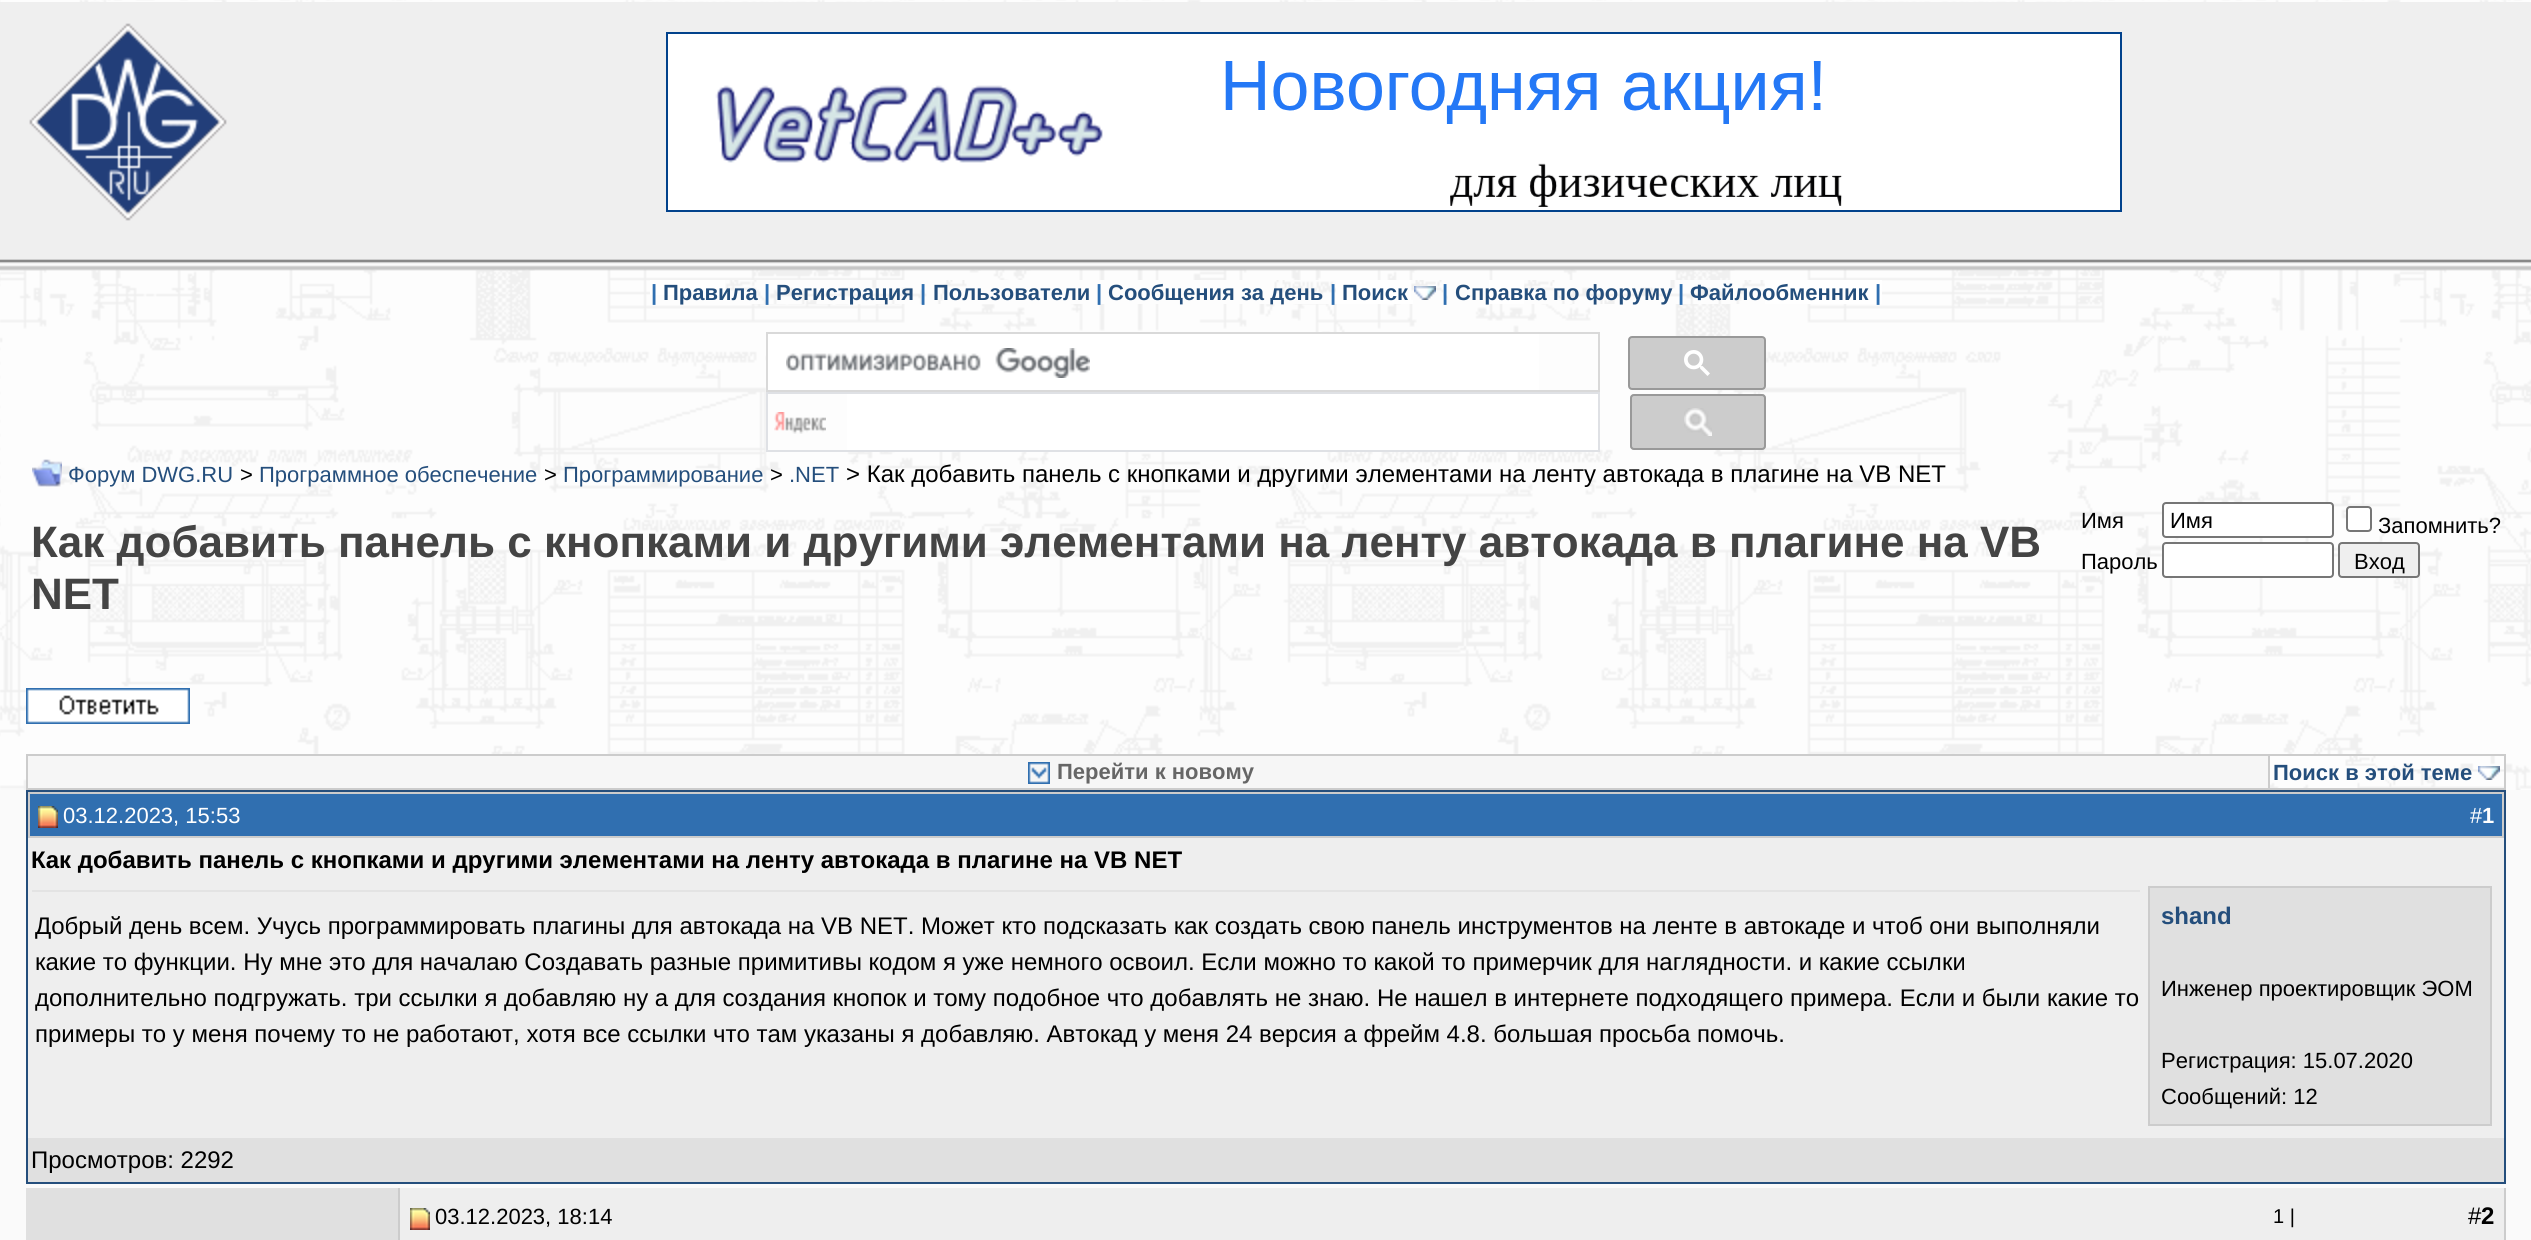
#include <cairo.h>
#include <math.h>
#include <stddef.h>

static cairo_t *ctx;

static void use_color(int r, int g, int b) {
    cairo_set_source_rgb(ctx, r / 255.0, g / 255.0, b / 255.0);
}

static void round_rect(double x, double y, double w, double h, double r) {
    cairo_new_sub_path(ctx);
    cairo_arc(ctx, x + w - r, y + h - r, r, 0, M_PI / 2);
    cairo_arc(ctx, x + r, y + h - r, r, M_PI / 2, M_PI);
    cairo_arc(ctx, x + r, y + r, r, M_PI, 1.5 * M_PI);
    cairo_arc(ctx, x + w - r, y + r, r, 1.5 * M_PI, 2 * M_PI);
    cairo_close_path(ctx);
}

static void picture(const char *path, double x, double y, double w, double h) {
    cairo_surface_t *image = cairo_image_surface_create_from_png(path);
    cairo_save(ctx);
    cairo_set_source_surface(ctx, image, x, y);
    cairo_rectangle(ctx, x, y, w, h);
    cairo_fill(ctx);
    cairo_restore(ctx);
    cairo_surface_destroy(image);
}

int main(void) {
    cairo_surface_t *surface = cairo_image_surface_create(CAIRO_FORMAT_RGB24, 2531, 1240);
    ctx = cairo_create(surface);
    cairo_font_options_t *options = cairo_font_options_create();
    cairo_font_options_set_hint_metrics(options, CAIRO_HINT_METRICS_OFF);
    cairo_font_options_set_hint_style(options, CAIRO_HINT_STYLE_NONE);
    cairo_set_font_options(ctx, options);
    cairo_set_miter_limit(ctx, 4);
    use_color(255, 255, 255);
    cairo_paint(ctx);
    picture("img1.png", 0, 0, 2531, 790);
    use_color(239, 239, 239);
    cairo_rectangle(ctx, 0, 2, 2531, 240);
    cairo_fill(ctx);
    picture("img2.png", 29, 23, 198, 198);
    picture("img3.png", 666, 32, 1456, 180);
    picture("img4.png", 0, 242, 254, 29);
    picture("img5.png", 254, 242, 2277, 29);
    use_color(255, 255, 255);
    cairo_rectangle(ctx, 650, 280, 75, 15);
    cairo_fill(ctx);
    picture("img6.png", 725, 280, 611, 24);
    cairo_select_font_face(ctx, "Liberation Sans", CAIRO_FONT_SLANT_NORMAL, CAIRO_FONT_WEIGHT_BOLD);
    cairo_set_font_size(ctx, 22);
    use_color(48, 111, 176);
    cairo_move_to(ctx, 651, 300);
    cairo_show_text(ctx, "|");
    use_color(36, 78, 124);
    cairo_move_to(ctx, 663, 300);
    cairo_show_text(ctx, "Правила");
    use_color(48, 111, 176);
    cairo_move_to(ctx, 764, 300);
    cairo_show_text(ctx, "|");
    use_color(36, 78, 124);
    cairo_move_to(ctx, 776, 300);
    cairo_show_text(ctx, "Регистрация");
    use_color(48, 111, 176);
    cairo_move_to(ctx, 920, 300);
    cairo_show_text(ctx, "|");
    use_color(36, 78, 124);
    cairo_move_to(ctx, 933, 300);
    cairo_show_text(ctx, "Пользователи");
    use_color(48, 111, 176);
    cairo_move_to(ctx, 1096, 300);
    cairo_show_text(ctx, "|");
    use_color(36, 78, 124);
    cairo_move_to(ctx, 1108, 300);
    cairo_show_text(ctx, "Сообщения за день");
    use_color(48, 111, 176);
    cairo_move_to(ctx, 1330, 300);
    cairo_show_text(ctx, "|");
    use_color(255, 255, 255);
    cairo_rectangle(ctx, 1336, 280, 77, 24);
    cairo_fill(ctx);
    picture("img7.png", 1411, 280, 37, 20);
    use_color(36, 78, 124);
    cairo_move_to(ctx, 1342, 300);
    cairo_show_text(ctx, "Поиск");
    picture("img8.png", 1414, 286, 22, 14);
    use_color(48, 111, 176);
    cairo_move_to(ctx, 1442, 300);
    cairo_show_text(ctx, "|");
    use_color(255, 255, 255);
    cairo_rectangle(ctx, 1489, 280, 393, 24);
    cairo_fill(ctx);
    picture("img9.png", 1524, 280, 241, 24);
    use_color(36, 78, 124);
    cairo_move_to(ctx, 1455, 300);
    cairo_show_text(ctx, "Справка по форуму");
    use_color(48, 111, 176);
    cairo_move_to(ctx, 1678, 300);
    cairo_show_text(ctx, "|");
    use_color(36, 78, 124);
    cairo_move_to(ctx, 1690, 300);
    cairo_show_text(ctx, "Файлообменник");
    use_color(48, 111, 176);
    cairo_move_to(ctx, 1875, 300);
    cairo_show_text(ctx, "|");
    use_color(255, 255, 255);
    cairo_rectangle(ctx, 768, 334, 771, 56);
    cairo_fill(ctx);
    cairo_rectangle(ctx, 767, 333, 832, 58);
    use_color(217, 217, 217);
    cairo_stroke(ctx);
    picture("img10.png", 786, 348, 304, 30);
    use_color(204, 204, 204);
    round_rect(1629, 337, 136, 52, 3);
    cairo_fill_preserve(ctx);
    use_color(153, 153, 153);
    cairo_stroke(ctx);
    picture("img11.png", 1684, 350, 26, 26);
    use_color(255, 255, 255);
    cairo_rectangle(ctx, 847, 394, 751, 56);
    cairo_fill(ctx);
    picture("img12.png", 774, 412, 52, 22);
    cairo_rectangle(ctx, 767, 393, 832, 58);
    use_color(223, 225, 229);
    cairo_stroke(ctx);
    use_color(204, 204, 204);
    round_rect(1630, 394, 136, 56, 4);
    cairo_fill(ctx);
    picture("img13.png", 1684, 408, 28, 28);
    round_rect(1631, 395, 134, 54, 3);
    use_color(153, 153, 153);
    cairo_stroke(ctx);
    picture("img14.png", 32, 459, 30, 28);
    cairo_select_font_face(ctx, "Liberation Sans", CAIRO_FONT_SLANT_NORMAL, CAIRO_FONT_WEIGHT_NORMAL);
    use_color(36, 78, 124);
    cairo_move_to(ctx, 68, 482);
    cairo_show_text(ctx, "Форум DWG.RU");
    use_color(0, 0, 0);
    cairo_move_to(ctx, 240, 482);
    cairo_show_text(ctx, ">");
    use_color(36, 78, 124);
    cairo_move_to(ctx, 259, 482);
    cairo_show_text(ctx, "Программное обеспечение");
    use_color(0, 0, 0);
    cairo_move_to(ctx, 544, 482);
    cairo_show_text(ctx, ">");
    use_color(36, 78, 124);
    cairo_move_to(ctx, 563, 482);
    cairo_show_text(ctx, "Программирование");
    use_color(0, 0, 0);
    cairo_move_to(ctx, 770, 482);
    cairo_show_text(ctx, ">");
    use_color(36, 78, 124);
    cairo_move_to(ctx, 789, 482);
    cairo_show_text(ctx, ".NET");
    cairo_set_font_size(ctx, 24);
    use_color(0, 0, 0);
    cairo_move_to(ctx, 846, 482);
    cairo_show_text(ctx, "> Как добавить панель с кнопками и другими элементами на ленту автокада в плагине на VB NET");
    cairo_select_font_face(ctx, "Liberation Sans", CAIRO_FONT_SLANT_NORMAL, CAIRO_FONT_WEIGHT_BOLD);
    cairo_set_font_size(ctx, 44);
    use_color(68, 68, 68);
    cairo_move_to(ctx, 31, 557);
    cairo_show_text(ctx, "Как добавить панель с кнопками и другими элементами на ленту автокада в плагине на VB");
    cairo_move_to(ctx, 31, 609);
    cairo_show_text(ctx, "NET");
    cairo_select_font_face(ctx, "Liberation Sans", CAIRO_FONT_SLANT_NORMAL, CAIRO_FONT_WEIGHT_NORMAL);
    cairo_set_font_size(ctx, 22);
    use_color(0, 0, 0);
    cairo_move_to(ctx, 2081, 528);
    cairo_show_text(ctx, "Имя");
    use_color(255, 255, 255);
    round_rect(2163, 503, 170, 34, 3);
    cairo_fill_preserve(ctx);
    use_color(118, 118, 118);
    cairo_stroke(ctx);
    use_color(0, 0, 0);
    cairo_move_to(ctx, 2170, 528);
    cairo_show_text(ctx, "Имя");
    use_color(255, 255, 255);
    round_rect(2347, 507, 24, 24, 3);
    cairo_fill_preserve(ctx);
    use_color(118, 118, 118);
    cairo_stroke(ctx);
    use_color(0, 0, 0);
    cairo_move_to(ctx, 2378, 533);
    cairo_show_text(ctx, "Запомнить?");
    cairo_move_to(ctx, 2081, 569);
    cairo_show_text(ctx, "Пароль");
    use_color(255, 255, 255);
    round_rect(2163, 543, 170, 34, 3);
    cairo_fill_preserve(ctx);
    use_color(118, 118, 118);
    cairo_stroke(ctx);
    use_color(239, 239, 239);
    round_rect(2339, 543, 80, 34, 3);
    cairo_fill_preserve(ctx);
    use_color(118, 118, 118);
    cairo_stroke(ctx);
    use_color(0, 0, 0);
    cairo_move_to(ctx, 2354, 569);
    cairo_show_text(ctx, "Вход");
    picture("img15.png", 26, 688, 164, 36);
    use_color(204, 204, 204);
    cairo_rectangle(ctx, 26, 754, 2480, 36);
    cairo_fill(ctx);
    use_color(246, 246, 246);
    cairo_rectangle(ctx, 28, 756, 2240, 32);
    cairo_fill(ctx);
    picture("img16.png", 1028, 762, 22, 22);
    cairo_select_font_face(ctx, "Liberation Sans", CAIRO_FONT_SLANT_NORMAL, CAIRO_FONT_WEIGHT_BOLD);
    use_color(102, 102, 102);
    cairo_move_to(ctx, 1057, 779);
    cairo_show_text(ctx, "Перейти к новому");
    picture("img17.png", 2270, 756, 234, 32);
    use_color(36, 78, 124);
    cairo_move_to(ctx, 2273, 780);
    cairo_show_text(ctx, "Поиск в этой теме");
    picture("img18.png", 2478, 766, 22, 14);
    use_color(250, 250, 250);
    cairo_rectangle(ctx, 0, 790, 2531, 450);
    cairo_fill(ctx);
    cairo_rectangle(ctx, 27, 791, 2478, 392);
    use_color(36, 78, 124);
    cairo_stroke(ctx);
    use_color(48, 111, 176);
    cairo_rectangle(ctx, 30, 794, 2472, 42);
    cairo_fill(ctx);
    use_color(204, 204, 204);
    cairo_rectangle(ctx, 28, 792, 2476, 2);
    cairo_fill(ctx);
    cairo_rectangle(ctx, 28, 836, 2258, 2);
    cairo_fill(ctx);
    cairo_rectangle(ctx, 28, 792, 2, 46);
    cairo_fill(ctx);
    picture("img19.png", 38, 806, 20, 22);
    cairo_select_font_face(ctx, "Liberation Sans", CAIRO_FONT_SLANT_NORMAL, CAIRO_FONT_WEIGHT_NORMAL);
    use_color(255, 255, 255);
    cairo_move_to(ctx, 63, 823);
    cairo_show_text(ctx, "03.12.2023, 15:53");
    use_color(204, 204, 204);
    cairo_rectangle(ctx, 2502, 792, 2, 46);
    cairo_fill(ctx);
    cairo_rectangle(ctx, 2286, 836, 218, 2);
    cairo_fill(ctx);
    use_color(255, 255, 255);
    cairo_move_to(ctx, 2470, 823);
    cairo_show_text(ctx, "#");
    cairo_select_font_face(ctx, "Liberation Sans", CAIRO_FONT_SLANT_NORMAL, CAIRO_FONT_WEIGHT_BOLD);
    cairo_move_to(ctx, 2482, 823);
    cairo_show_text(ctx, "1");
    use_color(238, 238, 238);
    cairo_rectangle(ctx, 28, 838, 2476, 300);
    cairo_fill(ctx);
    cairo_set_font_size(ctx, 24);
    use_color(0, 0, 0);
    cairo_move_to(ctx, 31, 868);
    cairo_show_text(ctx, "Как добавить панель с кнопками и другими элементами на ленту автокада в плагине на VB NET");
    use_color(227, 227, 227);
    cairo_rectangle(ctx, 32, 890, 2108, 2);
    cairo_fill(ctx);
    cairo_select_font_face(ctx, "Liberation Sans", CAIRO_FONT_SLANT_NORMAL, CAIRO_FONT_WEIGHT_NORMAL);
    use_color(0, 0, 0);
    cairo_move_to(ctx, 35, 934);
    cairo_show_text(ctx, "Добрый день всем. Учусь программировать плагины для автокада на VB NET. Может кто подсказать как создать свою панель инструментов на ленте в автокаде и чтоб они выполняли");
    cairo_move_to(ctx, 35, 970);
    cairo_show_text(ctx, "какие то функции. Ну мне это для началаю Создавать разные примитивы кодом я уже немного освоил. Если можно то какой то примерчик для наглядности. и какие ссылки");
    cairo_move_to(ctx, 35, 1006);
    cairo_show_text(ctx, "дополнительно подгружать. три ссылки я добавляю ну а для создания кнопок и тому подобное что добавлять не знаю. Не нашел в интернете подходящего примера. Если и были какие то");
    cairo_move_to(ctx, 35, 1042);
    cairo_show_text(ctx, "примеры то у меня почему то не работают, хотя все ссылки что там указаны я добавляю. Автокад у меня 24 версия а фрейм 4.8. большая просьба помочь.");
    use_color(224, 224, 224);
    cairo_rectangle(ctx, 2149, 887, 342, 238);
    cairo_fill_preserve(ctx);
    use_color(204, 204, 204);
    cairo_stroke(ctx);
    cairo_select_font_face(ctx, "Liberation Sans", CAIRO_FONT_SLANT_NORMAL, CAIRO_FONT_WEIGHT_BOLD);
    use_color(36, 78, 124);
    cairo_move_to(ctx, 2161, 924);
    cairo_show_text(ctx, "shand");
    cairo_select_font_face(ctx, "Liberation Sans", CAIRO_FONT_SLANT_NORMAL, CAIRO_FONT_WEIGHT_NORMAL);
    cairo_set_font_size(ctx, 22);
    use_color(0, 0, 0);
    cairo_move_to(ctx, 2161, 996);
    cairo_show_text(ctx, "Инженер проектировщик ЭОМ");
    cairo_move_to(ctx, 2161, 1068);
    cairo_show_text(ctx, "Регистрация: 15.07.2020");
    cairo_move_to(ctx, 2161, 1104);
    cairo_show_text(ctx, "Сообщений: 12");
    use_color(224, 224, 224);
    cairo_rectangle(ctx, 28, 1138, 2476, 44);
    cairo_fill(ctx);
    cairo_set_font_size(ctx, 24);
    use_color(0, 0, 0);
    cairo_move_to(ctx, 31, 1168);
    cairo_show_text(ctx, "Просмотров: 2292");
    use_color(224, 224, 224);
    cairo_rectangle(ctx, 26, 1188, 372, 52);
    cairo_fill(ctx);
    use_color(204, 204, 204);
    cairo_rectangle(ctx, 398, 1188, 2, 52);
    cairo_fill(ctx);
    use_color(238, 238, 238);
    cairo_rectangle(ctx, 400, 1188, 2104, 52);
    cairo_fill(ctx);
    use_color(204, 204, 204);
    cairo_rectangle(ctx, 2504, 1188, 2, 52);
    cairo_fill(ctx);
    picture("img20.png", 410, 1208, 20, 22);
    cairo_set_font_size(ctx, 22);
    use_color(0, 0, 0);
    cairo_move_to(ctx, 435, 1224);
    cairo_show_text(ctx, "03.12.2023, 18:14");
    cairo_set_font_size(ctx, 20);
    cairo_move_to(ctx, 2273, 1223);
    cairo_show_text(ctx, "1 |");
    cairo_set_font_size(ctx, 24);
    cairo_move_to(ctx, 2468, 1224);
    cairo_show_text(ctx, "#");
    cairo_select_font_face(ctx, "Liberation Sans", CAIRO_FONT_SLANT_NORMAL, CAIRO_FONT_WEIGHT_BOLD);
    cairo_move_to(ctx, 2481, 1224);
    cairo_show_text(ctx, "2");
    cairo_surface_write_to_png(surface, "result.png");
    cairo_font_options_destroy(options);
    cairo_destroy(ctx);
    cairo_surface_destroy(surface);
    return 0;
}
